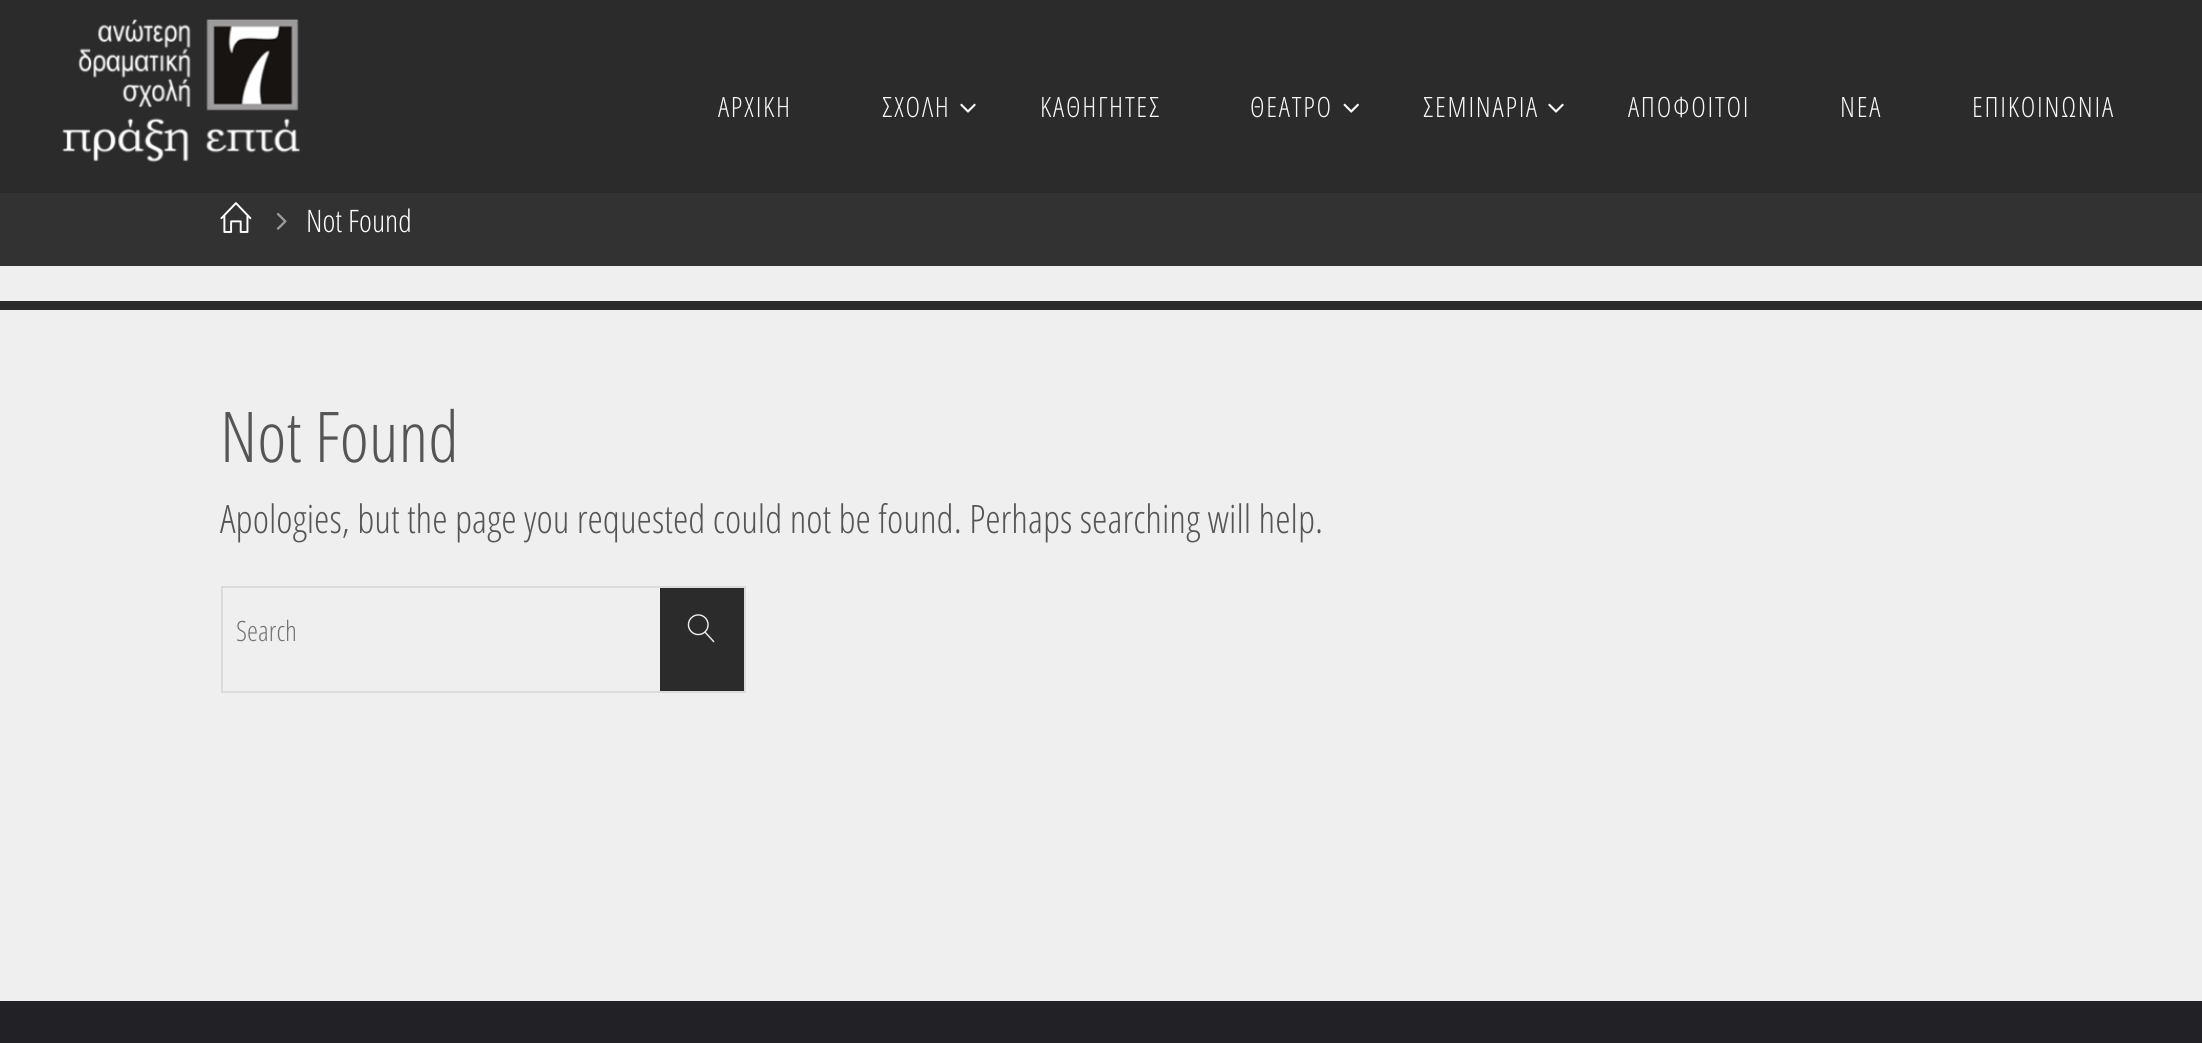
#include <cairo.h>
#include <math.h>
#include <stddef.h>

static cairo_t *ctx;

static void use_color(int r, int g, int b) {
    cairo_set_source_rgb(ctx, r / 255.0, g / 255.0, b / 255.0);
}

static void spaced_text(double x, double y, const char *s, double letter, double word) {
    cairo_move_to(ctx, x, y);
    while (*s) {
        char ch[5] = {0};
        int n = 0;
        do ch[n++] = *s++; while ((*s & 0xC0) == 0x80);
        cairo_show_text(ctx, ch);
        cairo_rel_move_to(ctx, letter + word * (*ch == ' '), 0);
    }
}

static void picture(const char *path, double x, double y, double w, double h) {
    cairo_surface_t *image = cairo_image_surface_create_from_png(path);
    cairo_save(ctx);
    cairo_set_source_surface(ctx, image, x, y);
    cairo_rectangle(ctx, x, y, w, h);
    cairo_fill(ctx);
    cairo_restore(ctx);
    cairo_surface_destroy(image);
}

int main(void) {
    cairo_surface_t *surface = cairo_image_surface_create(CAIRO_FORMAT_RGB24, 2202, 1043);
    ctx = cairo_create(surface);
    cairo_font_options_t *options = cairo_font_options_create();
    cairo_font_options_set_hint_metrics(options, CAIRO_HINT_METRICS_OFF);
    cairo_font_options_set_hint_style(options, CAIRO_HINT_STYLE_NONE);
    cairo_set_font_options(ctx, options);
    cairo_set_miter_limit(ctx, 4);
    use_color(239, 239, 239);
    cairo_paint(ctx);
    use_color(43, 43, 43);
    cairo_rectangle(ctx, 0, 0, 2202, 193);
    cairo_fill(ctx);
    picture("img1.png", 62, 19, 238, 143);
    cairo_select_font_face(ctx, "Open Sans Condensed Light", CAIRO_FONT_SLANT_NORMAL, CAIRO_FONT_WEIGHT_NORMAL);
    cairo_set_font_size(ctx, 28);
    use_color(249, 249, 249);
    spaced_text(718, 117, "ΑΡΧΙΚΗ", 1.75, 0);
    spaced_text(882, 117, "ΣΧΟΛΗ", 1.75, 0);
    picture("img2.png", 960, 103, 16, 10);
    spaced_text(1040, 117, "ΚΑΘΗΓΗΤΕΣ", 1.75, 0);
    spaced_text(1250, 117, "ΘΕΑΤΡΟ", 1.75, 0);
    picture("img3.png", 1343, 103, 16, 10);
    spaced_text(1423, 117, "ΣΕΜΙΝΑΡΙΑ", 1.75, 0);
    picture("img2.png", 1548, 103, 16, 10);
    spaced_text(1628, 117, "ΑΠΟΦΟΙΤΟΙ", 1.75, 0);
    spaced_text(1840, 117, "ΝΕΑ", 1.75, 0);
    spaced_text(1972, 117, "ΕΠΙΚΟΙΝΩΝΙΑ", 1.75, 0);
    use_color(50, 50, 50);
    cairo_rectangle(ctx, 0, 193, 2202, 73);
    cairo_fill(ctx);
    picture("img4.png", 220, 202, 32, 31);
    picture("img5.png", 276, 212, 11, 18);
    cairo_set_font_size(ctx, 31);
    use_color(255, 255, 255);
    cairo_move_to(ctx, 306, 232);
    cairo_show_text(ctx, "Not Found");
    use_color(43, 43, 43);
    cairo_rectangle(ctx, 0, 301, 2202, 9);
    cairo_fill(ctx);
    cairo_set_font_size(ctx, 70);
    use_color(85, 85, 85);
    cairo_move_to(ctx, 220, 462);
    cairo_show_text(ctx, "Not Found");
    cairo_set_font_size(ctx, 39.2);
    cairo_move_to(ctx, 220, 533);
    cairo_show_text(ctx, "Apologies, but the page you requested could not be found. Perhaps searching will help.");
    cairo_rectangle(ctx, 222, 587, 523, 105);
    use_color(219, 219, 219);
    cairo_stroke(ctx);
    use_color(43, 43, 43);
    cairo_rectangle(ctx, 660, 588, 84, 103);
    cairo_fill(ctx);
    cairo_set_font_size(ctx, 28);
    use_color(117, 117, 117);
    cairo_move_to(ctx, 236, 641);
    cairo_show_text(ctx, "Search");
    picture("img6.png", 687, 614, 28, 29);
    use_color(34, 34, 38);
    cairo_rectangle(ctx, 0, 1001, 2202, 42);
    cairo_fill(ctx);
    cairo_surface_write_to_png(surface, "result.png");
    cairo_font_options_destroy(options);
    cairo_destroy(ctx);
    cairo_surface_destroy(surface);
    return 0;
}
